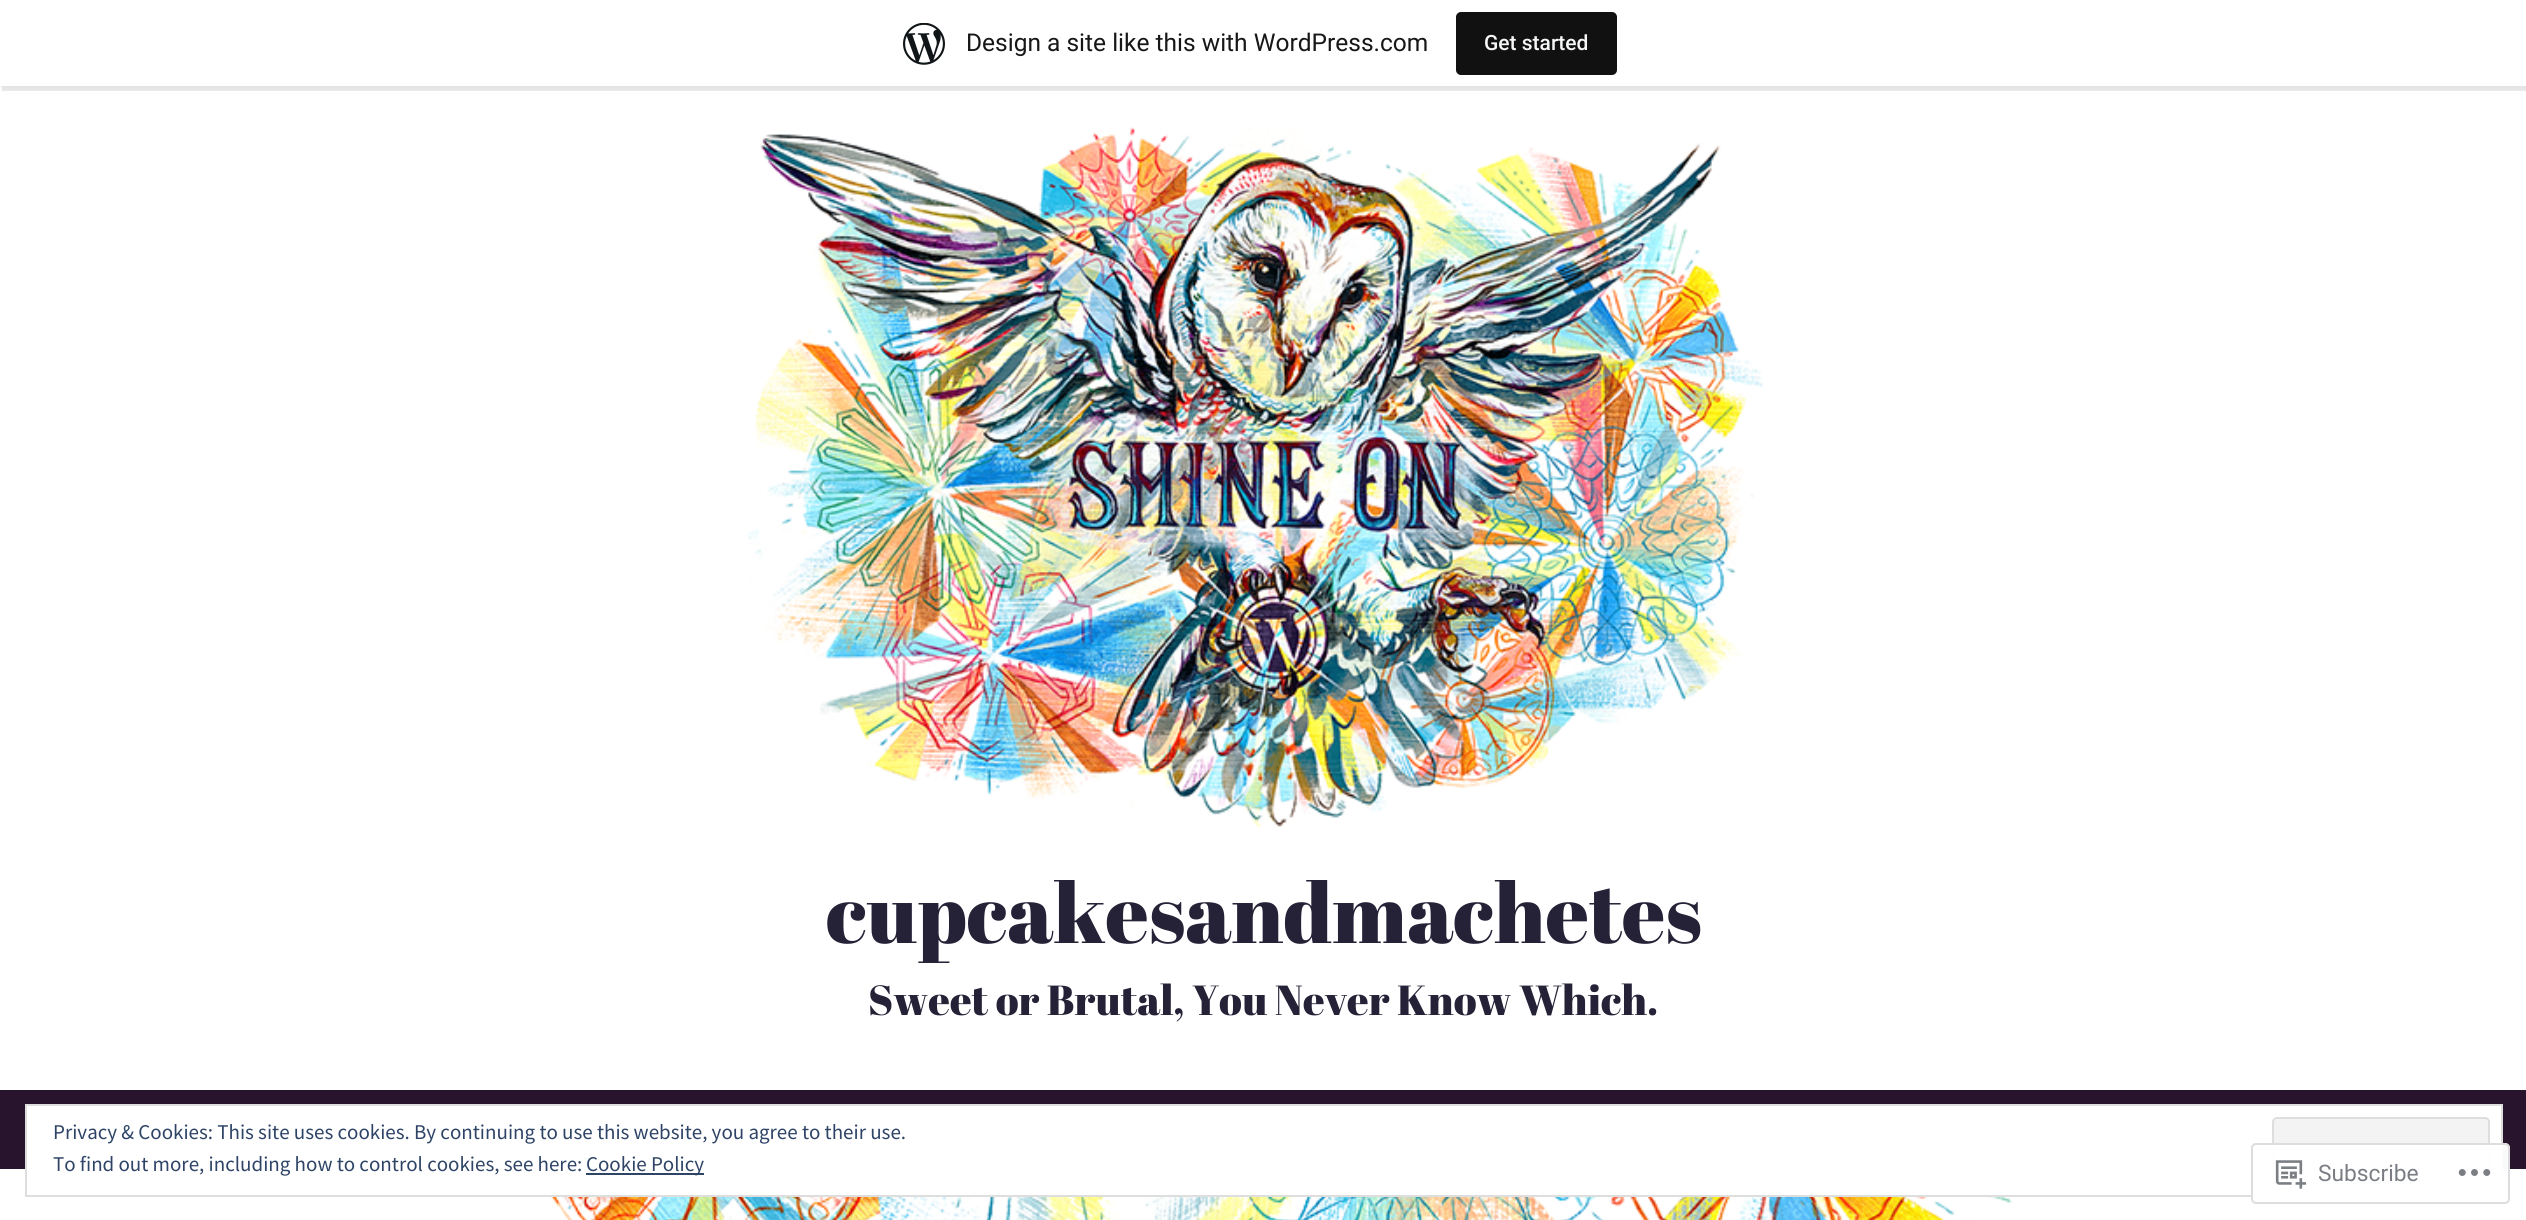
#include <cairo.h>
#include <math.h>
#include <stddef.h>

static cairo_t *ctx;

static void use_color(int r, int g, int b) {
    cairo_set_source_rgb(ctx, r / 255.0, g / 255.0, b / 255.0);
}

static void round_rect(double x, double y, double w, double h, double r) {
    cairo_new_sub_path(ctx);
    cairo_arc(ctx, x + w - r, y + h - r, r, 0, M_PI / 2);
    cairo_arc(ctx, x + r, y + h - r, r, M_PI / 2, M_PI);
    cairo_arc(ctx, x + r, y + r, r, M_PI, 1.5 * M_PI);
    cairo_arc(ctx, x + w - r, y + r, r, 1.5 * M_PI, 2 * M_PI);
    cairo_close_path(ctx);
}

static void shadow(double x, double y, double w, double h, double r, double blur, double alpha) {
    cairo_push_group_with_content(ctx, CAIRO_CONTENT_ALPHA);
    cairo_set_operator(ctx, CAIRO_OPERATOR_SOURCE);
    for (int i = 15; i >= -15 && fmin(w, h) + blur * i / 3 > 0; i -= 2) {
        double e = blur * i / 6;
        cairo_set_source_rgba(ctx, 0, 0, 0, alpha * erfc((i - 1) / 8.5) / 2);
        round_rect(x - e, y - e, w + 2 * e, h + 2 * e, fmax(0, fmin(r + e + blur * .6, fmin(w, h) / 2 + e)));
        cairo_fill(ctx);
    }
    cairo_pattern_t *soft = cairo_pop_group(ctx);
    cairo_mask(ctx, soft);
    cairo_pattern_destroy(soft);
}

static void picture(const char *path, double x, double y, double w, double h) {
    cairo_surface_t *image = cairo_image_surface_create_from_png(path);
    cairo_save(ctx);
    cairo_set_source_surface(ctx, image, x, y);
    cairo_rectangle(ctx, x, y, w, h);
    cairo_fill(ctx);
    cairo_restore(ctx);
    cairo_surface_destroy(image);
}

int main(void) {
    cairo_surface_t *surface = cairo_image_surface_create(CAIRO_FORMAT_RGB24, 2526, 1220);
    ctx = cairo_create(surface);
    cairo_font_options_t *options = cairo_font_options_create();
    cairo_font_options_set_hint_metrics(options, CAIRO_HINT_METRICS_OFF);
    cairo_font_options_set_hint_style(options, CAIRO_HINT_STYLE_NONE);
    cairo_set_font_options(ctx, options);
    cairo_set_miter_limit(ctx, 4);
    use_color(255, 255, 255);
    cairo_paint(ctx);
    use_color(0, 0, 0);
    shadow(0, 2, 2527, 86, 0, 2, 0.05);
    cairo_set_source_rgba(ctx, 0, 0, 0, 0.08);
    cairo_new_path(ctx);
    cairo_move_to(ctx, 2, 86);
    cairo_line_to(ctx, 2, 91);
    cairo_line_to(ctx, 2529, 91);
    cairo_line_to(ctx, 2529, 5);
    cairo_line_to(ctx, 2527, 5);
    cairo_line_to(ctx, 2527, 86);
    cairo_close_path(ctx);
    cairo_fill(ctx);
    use_color(255, 255, 255);
    cairo_rectangle(ctx, 0, 0, 2526, 86);
    cairo_fill(ctx);
    picture("img1.png", 903, 23, 42, 42);
    cairo_select_font_face(ctx, "Roboto", CAIRO_FONT_SLANT_NORMAL, CAIRO_FONT_WEIGHT_NORMAL);
    cairo_set_font_size(ctx, 24.5);
    use_color(23, 23, 23);
    cairo_move_to(ctx, 966, 51);
    cairo_show_text(ctx, "Design a site like this with WordPress.com");
    use_color(17, 17, 17);
    round_rect(1456, 12, 161, 63, 5);
    cairo_fill(ctx);
    cairo_select_font_face(ctx, "Roboto Medium", CAIRO_FONT_SLANT_NORMAL, CAIRO_FONT_WEIGHT_NORMAL);
    cairo_set_font_size(ctx, 21);
    use_color(246, 247, 247);
    cairo_move_to(ctx, 1484, 50);
    cairo_show_text(ctx, "Get started");
    picture("img2.png", 747, 127, 1016, 701);
    cairo_select_font_face(ctx, "Abril Fatface", CAIRO_FONT_SLANT_NORMAL, CAIRO_FONT_WEIGHT_NORMAL);
    cairo_set_font_size(ctx, 84);
    use_color(37, 33, 55);
    cairo_move_to(ctx, 826, 943);
    cairo_show_text(ctx, "cupcakesandmachetes");
    cairo_set_font_size(ctx, 42);
    cairo_move_to(ctx, 868, 1015);
    cairo_show_text(ctx, "Sweet or Brutal, You Never Know Which.");
    use_color(41, 20, 46);
    cairo_rectangle(ctx, 0, 1090, 2526, 79);
    cairo_fill(ctx);
    picture("img3.png", 550, 1197, 1463, 23);
    use_color(255, 255, 255);
    cairo_rectangle(ctx, 27, 1106, 2474, 63);
    cairo_fill(ctx);
    cairo_rectangle(ctx, 26, 1105, 2476, 91);
    use_color(222, 222, 222);
    cairo_stroke(ctx);
    cairo_select_font_face(ctx, "Source Sans Pro", CAIRO_FONT_SLANT_NORMAL, CAIRO_FONT_WEIGHT_NORMAL);
    cairo_set_font_size(ctx, 21);
    use_color(46, 68, 103);
    cairo_move_to(ctx, 53, 1139);
    cairo_show_text(ctx, "Privacy & Cookies: This site uses cookies. By continuing to use this website, you agree to their use.");
    use_color(243, 243, 243);
    round_rect(2273, 1118, 216, 66, 4);
    cairo_fill_preserve(ctx);
    use_color(222, 222, 222);
    cairo_stroke(ctx);
    use_color(46, 68, 103);
    cairo_move_to(ctx, 53, 1171);
    cairo_show_text(ctx, "To find out more, including how to control cookies, see here:");
    cairo_rectangle(ctx, 586, 1173, 118, 2);
    cairo_fill(ctx);
    cairo_move_to(ctx, 586, 1171);
    cairo_show_text(ctx, "Cookie Policy");
    cairo_set_source_rgba(ctx, 1, 1, 1, 0.98);
    round_rect(2251, 1143, 259, 61, 5);
    cairo_fill(ctx);
    round_rect(2252, 1144, 257, 59, 4);
    cairo_set_source_rgba(ctx, 0.863, 0.863, 0.871, 0.98);
    cairo_stroke(ctx);
    picture("img4.png", 2275, 1160, 32, 29);
    cairo_select_font_face(ctx, "Roboto", CAIRO_FONT_SLANT_NORMAL, CAIRO_FONT_WEIGHT_NORMAL);
    cairo_set_font_size(ctx, 22.75);
    use_color(122, 126, 132);
    cairo_move_to(ctx, 2318, 1181);
    cairo_show_text(ctx, "Subscribe");
    picture("img5.png", 2458, 1169, 33, 7);
    cairo_surface_write_to_png(surface, "result.png");
    cairo_font_options_destroy(options);
    cairo_destroy(ctx);
    cairo_surface_destroy(surface);
    return 0;
}
